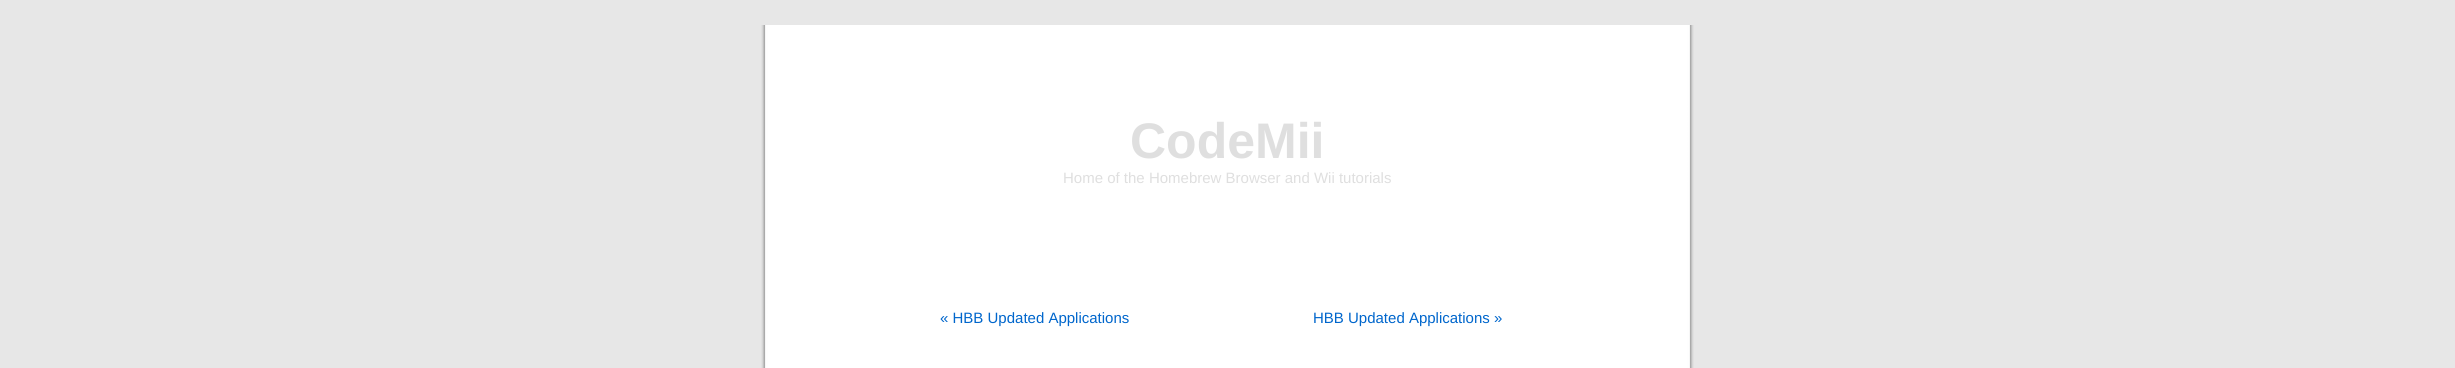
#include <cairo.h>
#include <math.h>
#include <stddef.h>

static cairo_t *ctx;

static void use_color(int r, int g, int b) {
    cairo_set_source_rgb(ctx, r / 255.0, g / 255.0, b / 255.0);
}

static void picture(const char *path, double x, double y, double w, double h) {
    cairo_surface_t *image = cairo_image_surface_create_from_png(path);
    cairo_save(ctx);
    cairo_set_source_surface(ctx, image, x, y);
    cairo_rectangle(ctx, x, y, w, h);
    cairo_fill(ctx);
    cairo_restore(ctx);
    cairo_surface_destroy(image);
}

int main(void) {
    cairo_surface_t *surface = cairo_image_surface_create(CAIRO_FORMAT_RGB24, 2455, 368);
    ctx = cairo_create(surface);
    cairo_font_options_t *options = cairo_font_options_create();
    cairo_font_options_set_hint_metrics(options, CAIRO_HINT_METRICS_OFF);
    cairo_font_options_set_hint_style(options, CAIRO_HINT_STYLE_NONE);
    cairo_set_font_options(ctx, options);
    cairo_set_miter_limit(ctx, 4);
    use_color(231, 231, 231);
    cairo_paint(ctx);
    picture("img1.png", 761, 25, 933, 343);
    cairo_select_font_face(ctx, "Liberation Sans", CAIRO_FONT_SLANT_NORMAL, CAIRO_FONT_WEIGHT_BOLD);
    cairo_set_font_size(ctx, 50);
    use_color(223, 223, 223);
    cairo_move_to(ctx, 1130, 158);
    cairo_show_text(ctx, "CodeMii");
    cairo_select_font_face(ctx, "Liberation Sans", CAIRO_FONT_SLANT_NORMAL, CAIRO_FONT_WEIGHT_NORMAL);
    cairo_set_font_size(ctx, 15);
    cairo_move_to(ctx, 1063, 183);
    cairo_show_text(ctx, "Home of the Homebrew Browser and Wii tutorials");
    use_color(0, 102, 204);
    cairo_move_to(ctx, 940, 323);
    cairo_show_text(ctx, "« HBB Updated Applications");
    cairo_move_to(ctx, 1313, 323);
    cairo_show_text(ctx, "HBB Updated Applications »");
    cairo_surface_write_to_png(surface, "result.png");
    cairo_font_options_destroy(options);
    cairo_destroy(ctx);
    cairo_surface_destroy(surface);
    return 0;
}
